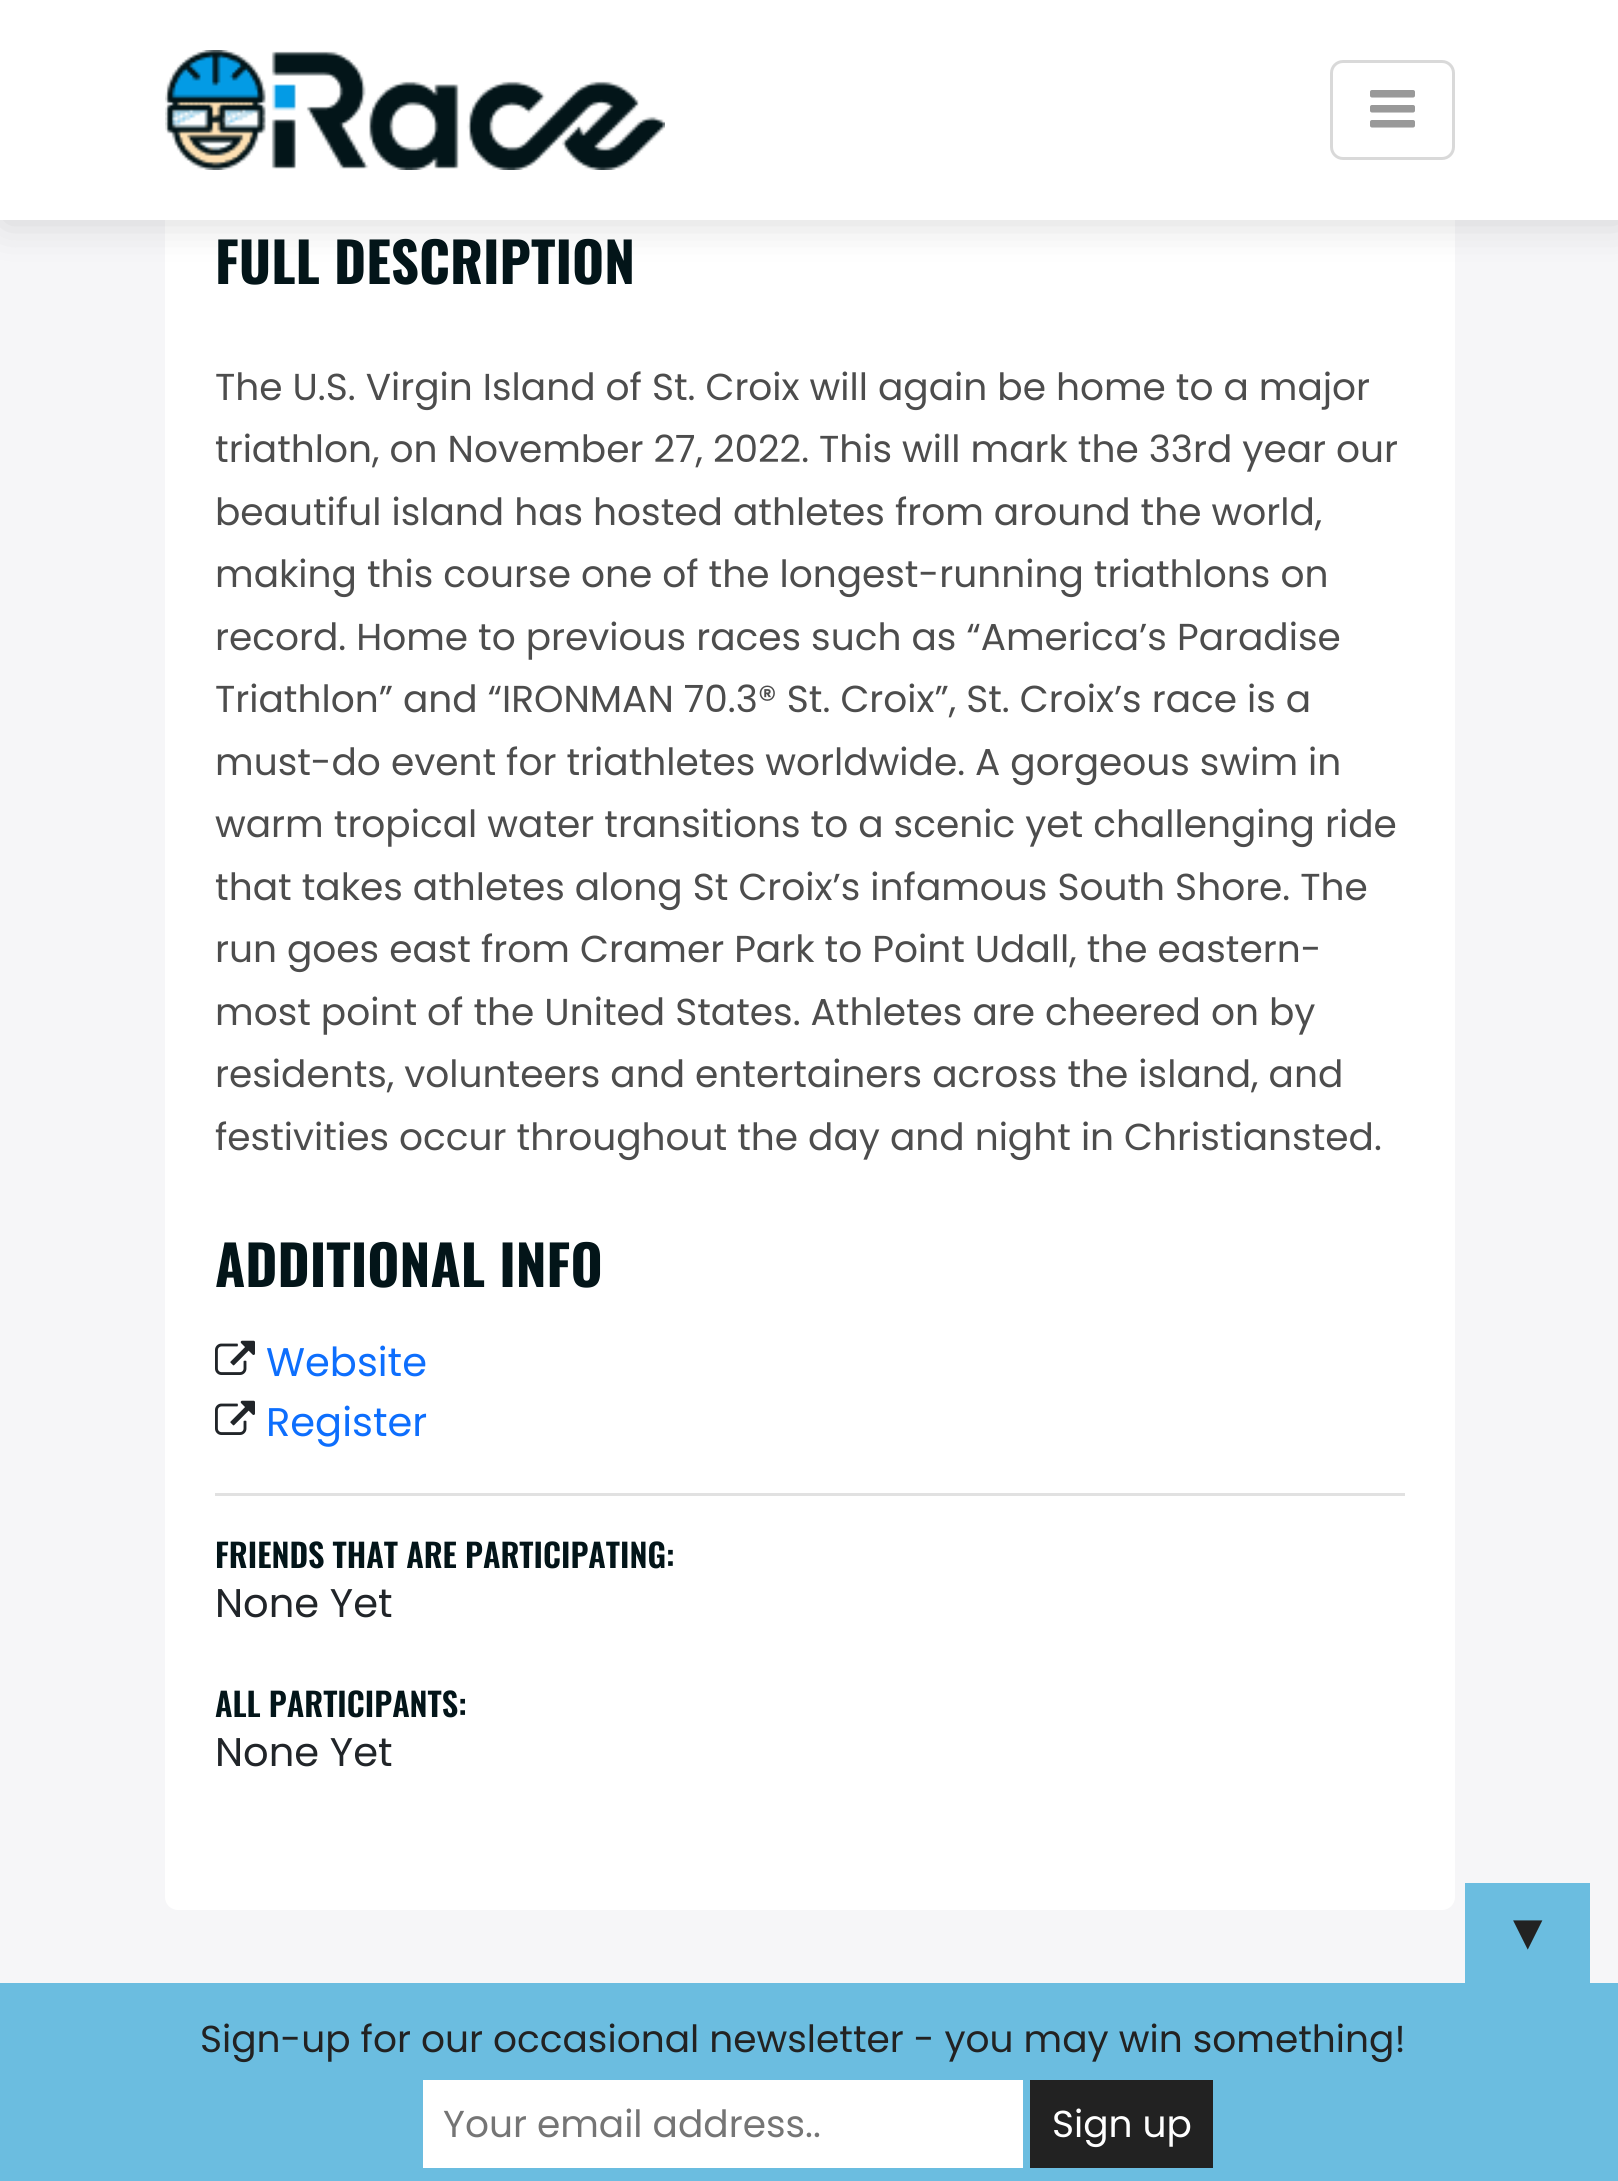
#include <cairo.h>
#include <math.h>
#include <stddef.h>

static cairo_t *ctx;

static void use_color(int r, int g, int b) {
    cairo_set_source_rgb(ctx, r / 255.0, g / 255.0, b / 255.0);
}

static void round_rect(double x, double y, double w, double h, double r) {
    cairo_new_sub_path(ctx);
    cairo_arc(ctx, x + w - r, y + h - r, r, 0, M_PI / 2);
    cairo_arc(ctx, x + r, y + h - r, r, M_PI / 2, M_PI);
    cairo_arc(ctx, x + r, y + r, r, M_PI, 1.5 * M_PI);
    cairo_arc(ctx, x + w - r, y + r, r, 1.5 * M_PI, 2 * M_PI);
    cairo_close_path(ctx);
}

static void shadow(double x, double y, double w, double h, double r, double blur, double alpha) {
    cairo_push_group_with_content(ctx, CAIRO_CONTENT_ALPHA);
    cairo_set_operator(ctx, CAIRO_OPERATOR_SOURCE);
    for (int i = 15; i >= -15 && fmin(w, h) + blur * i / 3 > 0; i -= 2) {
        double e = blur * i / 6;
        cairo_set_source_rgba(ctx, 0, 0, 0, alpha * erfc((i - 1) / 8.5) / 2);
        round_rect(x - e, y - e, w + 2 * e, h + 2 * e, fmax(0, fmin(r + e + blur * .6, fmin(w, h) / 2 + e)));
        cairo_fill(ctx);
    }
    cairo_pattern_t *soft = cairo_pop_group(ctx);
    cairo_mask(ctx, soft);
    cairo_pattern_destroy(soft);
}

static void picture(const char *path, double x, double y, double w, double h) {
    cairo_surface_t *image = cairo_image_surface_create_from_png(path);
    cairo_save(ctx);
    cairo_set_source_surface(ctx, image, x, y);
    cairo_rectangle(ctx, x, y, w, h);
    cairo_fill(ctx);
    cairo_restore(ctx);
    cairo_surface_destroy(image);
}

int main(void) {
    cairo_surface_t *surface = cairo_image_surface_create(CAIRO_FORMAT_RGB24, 1618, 2181);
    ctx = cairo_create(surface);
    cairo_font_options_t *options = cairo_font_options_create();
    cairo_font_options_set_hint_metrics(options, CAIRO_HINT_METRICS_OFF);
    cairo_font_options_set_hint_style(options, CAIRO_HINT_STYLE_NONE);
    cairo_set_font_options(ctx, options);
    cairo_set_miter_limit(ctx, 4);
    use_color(246, 246, 248);
    cairo_paint(ctx);
    use_color(255, 255, 255);
    round_rect(165, -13, 1290, 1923, 13);
    cairo_fill(ctx);
    use_color(128, 128, 128);
    shadow(3, 3, 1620, 220, 0, 21, 0.3);
    use_color(255, 255, 255);
    cairo_rectangle(ctx, 0, 0, 1618, 220);
    cairo_fill(ctx);
    picture("img1.png", 165, 50, 500, 120);
    round_rect(1331.5, 61.5, 122, 97, 11.5);
    use_color(217, 217, 217);
    cairo_set_line_width(ctx, 3);
    cairo_stroke(ctx);
    picture("img2.png", 1370, 90, 45, 38);
    cairo_select_font_face(ctx, "Oswald", CAIRO_FONT_SLANT_NORMAL, CAIRO_FONT_WEIGHT_BOLD);
    cairo_set_font_size(ctx, 55);
    use_color(3, 21, 25);
    cairo_move_to(ctx, 215, 284);
    cairo_show_text(ctx, "FULL DESCRIPTION");
    cairo_select_font_face(ctx, "Poppins", CAIRO_FONT_SLANT_NORMAL, CAIRO_FONT_WEIGHT_NORMAL);
    cairo_set_font_size(ctx, 37.5);
    use_color(77, 77, 77);
    cairo_move_to(ctx, 215, 400);
    cairo_show_text(ctx, "The U.S. Virgin Island of St. Croix will again be home to a major");
    cairo_move_to(ctx, 215, 462);
    cairo_show_text(ctx, "triathlon, on November 27, 2022. This will mark the 33rd year our");
    cairo_move_to(ctx, 215, 525);
    cairo_show_text(ctx, "beautiful island has hosted athletes from around the world,");
    cairo_move_to(ctx, 215, 587);
    cairo_show_text(ctx, "making this course one of the longest-running triathlons on");
    cairo_move_to(ctx, 215, 650);
    cairo_show_text(ctx, "record. Home to previous races such as “America’s Paradise");
    cairo_move_to(ctx, 215, 712);
    cairo_show_text(ctx, "Triathlon” and “IRONMAN 70.3® St. Croix”, St. Croix’s race is a");
    cairo_move_to(ctx, 215, 775);
    cairo_show_text(ctx, "must-do event for triathletes worldwide. A gorgeous swim in");
    cairo_move_to(ctx, 215, 837);
    cairo_show_text(ctx, "warm tropical water transitions to a scenic yet challenging ride");
    cairo_move_to(ctx, 215, 900);
    cairo_show_text(ctx, "that takes athletes along St Croix’s infamous South Shore. The");
    cairo_move_to(ctx, 215, 962);
    cairo_show_text(ctx, "run goes east from Cramer Park to Point Udall, the eastern-");
    cairo_move_to(ctx, 215, 1025);
    cairo_show_text(ctx, "most point of the United States. Athletes are cheered on by");
    cairo_move_to(ctx, 215, 1087);
    cairo_show_text(ctx, "residents, volunteers and entertainers across the island, and");
    cairo_move_to(ctx, 215, 1150);
    cairo_show_text(ctx, "festivities occur throughout the day and night in Christiansted.");
    cairo_select_font_face(ctx, "Oswald", CAIRO_FONT_SLANT_NORMAL, CAIRO_FONT_WEIGHT_BOLD);
    cairo_set_font_size(ctx, 55);
    use_color(3, 21, 25);
    cairo_move_to(ctx, 215, 1287);
    cairo_show_text(ctx, "ADDITIONAL INFO");
    picture("img3.png", 215, 1340, 40, 35);
    cairo_select_font_face(ctx, "Poppins", CAIRO_FONT_SLANT_NORMAL, CAIRO_FONT_WEIGHT_NORMAL);
    cairo_set_font_size(ctx, 40);
    use_color(13, 110, 253);
    cairo_move_to(ctx, 266, 1376);
    cairo_show_text(ctx, "Website");
    picture("img3.png", 215, 1400, 40, 35);
    cairo_move_to(ctx, 266, 1436);
    cairo_show_text(ctx, "Register");
    use_color(225, 225, 225);
    cairo_rectangle(ctx, 215, 1493, 1190, 3);
    cairo_fill(ctx);
    cairo_select_font_face(ctx, "Oswald SemiBold", CAIRO_FONT_SLANT_NORMAL, CAIRO_FONT_WEIGHT_NORMAL);
    cairo_set_font_size(ctx, 32.5);
    use_color(3, 21, 25);
    cairo_move_to(ctx, 215, 1568);
    cairo_show_text(ctx, "FRIENDS THAT ARE PARTICIPATING:");
    cairo_select_font_face(ctx, "Poppins", CAIRO_FONT_SLANT_NORMAL, CAIRO_FONT_WEIGHT_NORMAL);
    cairo_set_font_size(ctx, 40);
    use_color(33, 37, 41);
    cairo_move_to(ctx, 215, 1617);
    cairo_show_text(ctx, "None Yet");
    cairo_select_font_face(ctx, "Oswald SemiBold", CAIRO_FONT_SLANT_NORMAL, CAIRO_FONT_WEIGHT_NORMAL);
    cairo_set_font_size(ctx, 32.5);
    use_color(3, 21, 25);
    cairo_move_to(ctx, 215, 1717);
    cairo_show_text(ctx, "ALL PARTICIPANTS:");
    cairo_select_font_face(ctx, "Poppins", CAIRO_FONT_SLANT_NORMAL, CAIRO_FONT_WEIGHT_NORMAL);
    cairo_set_font_size(ctx, 40);
    use_color(33, 37, 41);
    cairo_move_to(ctx, 215, 1766);
    cairo_show_text(ctx, "None Yet");
    use_color(107, 189, 224);
    cairo_rectangle(ctx, 1465, 1883, 125, 100);
    cairo_fill(ctx);
    cairo_select_font_face(ctx, "Liberation Sans", CAIRO_FONT_SLANT_NORMAL, CAIRO_FONT_WEIGHT_NORMAL);
    cairo_set_font_size(ctx, 50);
    use_color(34, 34, 34);
    cairo_move_to(ctx, 1503, 1949);
    cairo_show_text(ctx, "▼");
    use_color(107, 189, 224);
    cairo_rectangle(ctx, 0, 1983, 1618, 198);
    cairo_fill(ctx);
    cairo_select_font_face(ctx, "Poppins", CAIRO_FONT_SLANT_NORMAL, CAIRO_FONT_WEIGHT_NORMAL);
    cairo_set_font_size(ctx, 37.5);
    use_color(34, 34, 34);
    cairo_move_to(ctx, 200, 2052);
    cairo_show_text(ctx, "Sign-up for our occasional newsletter - you may win something!");
    use_color(255, 255, 255);
    cairo_rectangle(ctx, 423, 2080, 600, 88);
    cairo_fill(ctx);
    use_color(117, 117, 117);
    cairo_move_to(ctx, 443, 2137);
    cairo_show_text(ctx, "Your email address..");
    use_color(34, 34, 34);
    cairo_rectangle(ctx, 1030, 2080, 183, 88);
    cairo_fill(ctx);
    use_color(255, 255, 255);
    cairo_move_to(ctx, 1052, 2137);
    cairo_show_text(ctx, "Sign up");
    cairo_surface_write_to_png(surface, "result.png");
    cairo_font_options_destroy(options);
    cairo_destroy(ctx);
    cairo_surface_destroy(surface);
    return 0;
}
